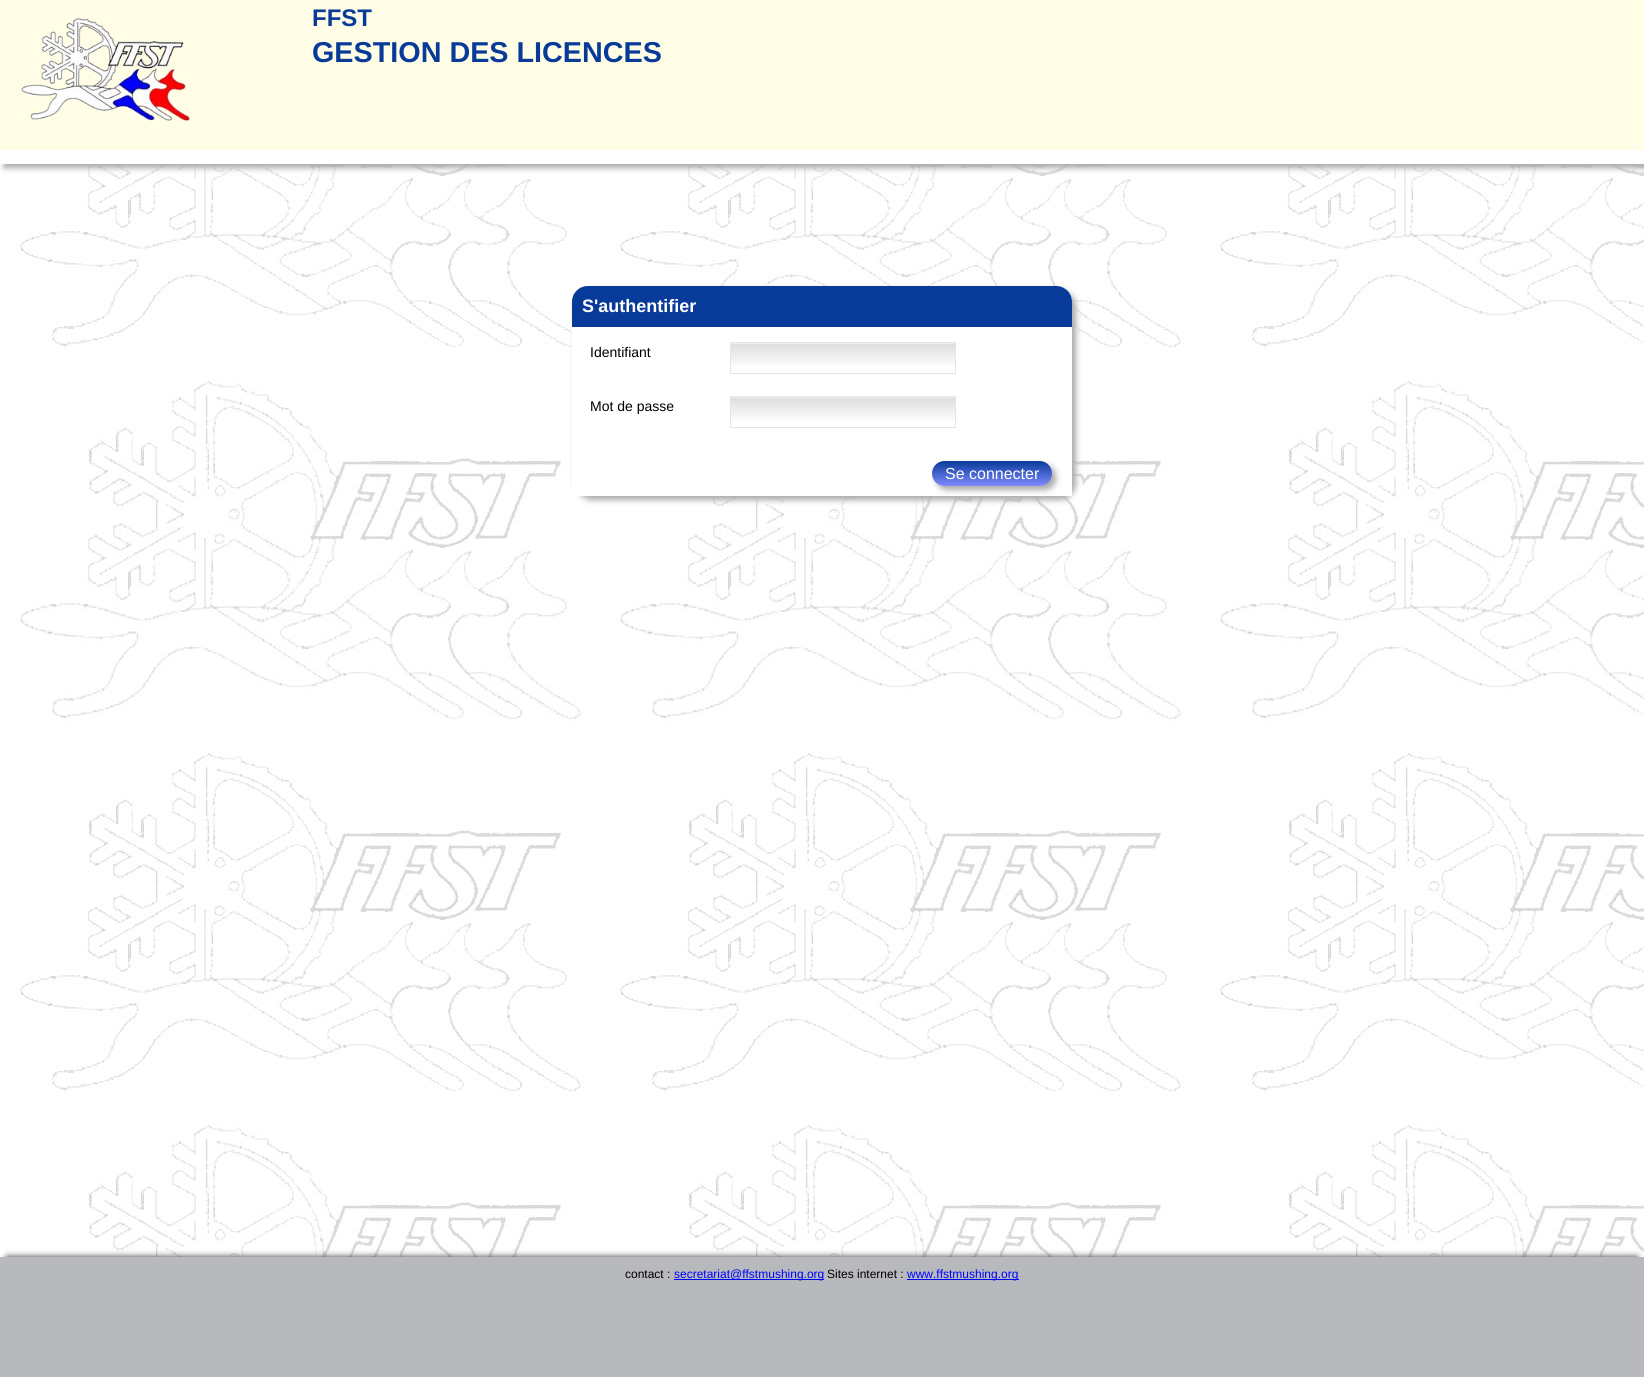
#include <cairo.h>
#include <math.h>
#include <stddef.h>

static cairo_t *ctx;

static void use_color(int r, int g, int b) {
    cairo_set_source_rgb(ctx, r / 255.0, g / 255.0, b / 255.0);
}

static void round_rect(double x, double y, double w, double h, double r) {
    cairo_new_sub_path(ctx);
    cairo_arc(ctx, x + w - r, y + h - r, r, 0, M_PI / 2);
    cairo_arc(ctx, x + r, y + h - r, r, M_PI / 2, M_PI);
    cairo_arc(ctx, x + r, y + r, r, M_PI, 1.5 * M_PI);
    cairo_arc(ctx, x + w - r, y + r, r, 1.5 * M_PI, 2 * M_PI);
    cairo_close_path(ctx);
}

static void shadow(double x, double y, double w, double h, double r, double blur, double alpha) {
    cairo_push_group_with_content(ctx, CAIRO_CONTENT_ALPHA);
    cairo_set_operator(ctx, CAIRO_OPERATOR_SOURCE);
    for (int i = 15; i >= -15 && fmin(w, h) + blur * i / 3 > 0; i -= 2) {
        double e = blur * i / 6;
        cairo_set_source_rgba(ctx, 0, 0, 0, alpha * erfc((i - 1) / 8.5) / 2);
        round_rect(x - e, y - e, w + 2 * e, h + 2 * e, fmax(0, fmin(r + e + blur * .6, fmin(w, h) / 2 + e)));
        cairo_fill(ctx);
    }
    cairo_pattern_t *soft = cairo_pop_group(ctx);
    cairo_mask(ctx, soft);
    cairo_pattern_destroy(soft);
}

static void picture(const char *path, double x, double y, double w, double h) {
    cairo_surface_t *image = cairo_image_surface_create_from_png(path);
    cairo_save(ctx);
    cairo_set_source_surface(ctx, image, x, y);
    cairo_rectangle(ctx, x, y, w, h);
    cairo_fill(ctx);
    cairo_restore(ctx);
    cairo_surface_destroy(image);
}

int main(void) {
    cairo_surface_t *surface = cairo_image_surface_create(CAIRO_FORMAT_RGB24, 1644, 1377);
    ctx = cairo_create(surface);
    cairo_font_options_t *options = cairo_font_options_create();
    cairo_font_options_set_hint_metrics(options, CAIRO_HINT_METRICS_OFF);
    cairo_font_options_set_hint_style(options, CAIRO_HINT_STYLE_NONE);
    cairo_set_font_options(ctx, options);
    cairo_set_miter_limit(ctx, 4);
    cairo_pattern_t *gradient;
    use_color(255, 255, 255);
    cairo_paint(ctx);
    picture("img1.png", 16, 164, 1628, 1093);
    use_color(170, 170, 170);
    shadow(4, 4, 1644, 164, 0, 3, 1);
    use_color(255, 253, 229);
    cairo_rectangle(ctx, 0, 0, 1644, 150);
    cairo_fill(ctx);
    use_color(255, 255, 255);
    cairo_rectangle(ctx, 0, 150, 1644, 14);
    cairo_fill(ctx);
    picture("img2.png", 21, 18, 169, 103);
    cairo_select_font_face(ctx, "Liberation Sans", CAIRO_FONT_SLANT_NORMAL, CAIRO_FONT_WEIGHT_BOLD);
    cairo_set_font_size(ctx, 24);
    use_color(8, 58, 153);
    cairo_move_to(ctx, 312, 26);
    cairo_show_text(ctx, "FFST");
    cairo_set_font_size(ctx, 28.75);
    cairo_move_to(ctx, 312, 62);
    cairo_show_text(ctx, "GESTION DES LICENCES");
    use_color(170, 170, 170);
    shadow(576, 290, 500, 210, 16, 3, 1);
    use_color(255, 255, 255);
    cairo_new_path(ctx);
    cairo_move_to(ctx, 588, 286);
    cairo_line_to(ctx, 1056, 286);
    cairo_curve_to(ctx, 1065, 286, 1072, 293, 1072, 302);
    cairo_line_to(ctx, 1072, 496);
    cairo_line_to(ctx, 572, 496);
    cairo_line_to(ctx, 572, 302);
    cairo_curve_to(ctx, 572, 293, 579, 286, 588, 286);
    cairo_close_path(ctx);
    cairo_fill(ctx);
    use_color(8, 58, 153);
    cairo_new_path(ctx);
    cairo_move_to(ctx, 588, 286);
    cairo_line_to(ctx, 1056, 286);
    cairo_curve_to(ctx, 1065, 286, 1072, 293, 1072, 302);
    cairo_line_to(ctx, 1072, 327);
    cairo_line_to(ctx, 572, 327);
    cairo_line_to(ctx, 572, 302);
    cairo_curve_to(ctx, 572, 293, 579, 286, 588, 286);
    cairo_close_path(ctx);
    cairo_fill(ctx);
    cairo_set_font_size(ctx, 18);
    use_color(255, 255, 255);
    cairo_move_to(ctx, 582, 312);
    cairo_show_text(ctx, "S'authentifier");
    cairo_select_font_face(ctx, "Liberation Sans", CAIRO_FONT_SLANT_NORMAL, CAIRO_FONT_WEIGHT_NORMAL);
    cairo_set_font_size(ctx, 14);
    use_color(0, 0, 0);
    cairo_move_to(ctx, 590, 357);
    cairo_show_text(ctx, "Identifiant");
    gradient = cairo_pattern_create_linear(731, 343, 731, 368);
    cairo_pattern_add_color_stop_rgba(gradient, 0, 1, 1, 1, 1);
    cairo_pattern_add_color_stop_rgba(gradient, 0.04, 0.867, 0.867, 0.867, 1);
    cairo_pattern_add_color_stop_rgba(gradient, 1, 1, 1, 1, 1);
    cairo_set_source(ctx, gradient);
    cairo_pattern_destroy(gradient);
    cairo_rectangle(ctx, 731, 343, 224, 23);
    cairo_fill(ctx);
    cairo_rectangle(ctx, 730.5, 342.5, 225, 31);
    use_color(229, 229, 229);
    cairo_set_line_width(ctx, 1);
    cairo_stroke(ctx);
    use_color(0, 0, 0);
    cairo_move_to(ctx, 590, 411);
    cairo_show_text(ctx, "Mot de passe");
    gradient = cairo_pattern_create_linear(731, 397, 731, 422);
    cairo_pattern_add_color_stop_rgba(gradient, 0, 1, 1, 1, 1);
    cairo_pattern_add_color_stop_rgba(gradient, 0.04, 0.867, 0.867, 0.867, 1);
    cairo_pattern_add_color_stop_rgba(gradient, 1, 1, 1, 1, 1);
    cairo_set_source(ctx, gradient);
    cairo_pattern_destroy(gradient);
    cairo_rectangle(ctx, 731, 397, 224, 23);
    cairo_fill(ctx);
    cairo_rectangle(ctx, 730.5, 396.5, 225, 31);
    use_color(229, 229, 229);
    cairo_stroke(ctx);
    use_color(170, 170, 170);
    shadow(936, 465, 120, 25, 12.5, 3, 1);
    gradient = cairo_pattern_create_linear(932, 461, 932, 486);
    cairo_pattern_add_color_stop_rgba(gradient, 0, 0.031, 0.227, 0.6, 1);
    cairo_pattern_add_color_stop_rgba(gradient, 1, 0.498, 0.545, 1, 1);
    cairo_set_source(ctx, gradient);
    cairo_pattern_destroy(gradient);
    round_rect(932, 461, 120, 25, 12.5);
    cairo_fill(ctx);
    cairo_set_font_size(ctx, 16);
    use_color(255, 255, 255);
    cairo_move_to(ctx, 945, 479);
    cairo_show_text(ctx, "Se connecter");
    use_color(51, 51, 51);
    shadow(7, 1257, 1630, 106, 0, 3.5, 1);
    use_color(184, 185, 188);
    cairo_rectangle(ctx, 0, 1257, 1644, 120);
    cairo_fill(ctx);
    cairo_set_font_size(ctx, 12);
    use_color(0, 0, 0);
    cairo_move_to(ctx, 625, 1278);
    cairo_show_text(ctx, "contact :");
    use_color(0, 3, 255);
    cairo_rectangle(ctx, 674, 1279, 150, 1);
    cairo_fill(ctx);
    cairo_move_to(ctx, 674, 1278);
    cairo_show_text(ctx, "secretariat@ffstmushing.org");
    use_color(0, 0, 0);
    cairo_move_to(ctx, 827, 1278);
    cairo_show_text(ctx, "Sites internet :");
    use_color(0, 3, 255);
    cairo_rectangle(ctx, 907, 1279, 112, 1);
    cairo_fill(ctx);
    cairo_move_to(ctx, 907, 1278);
    cairo_show_text(ctx, "www.ffstmushing.org");
    cairo_surface_write_to_png(surface, "result.png");
    cairo_font_options_destroy(options);
    cairo_destroy(ctx);
    cairo_surface_destroy(surface);
    return 0;
}
